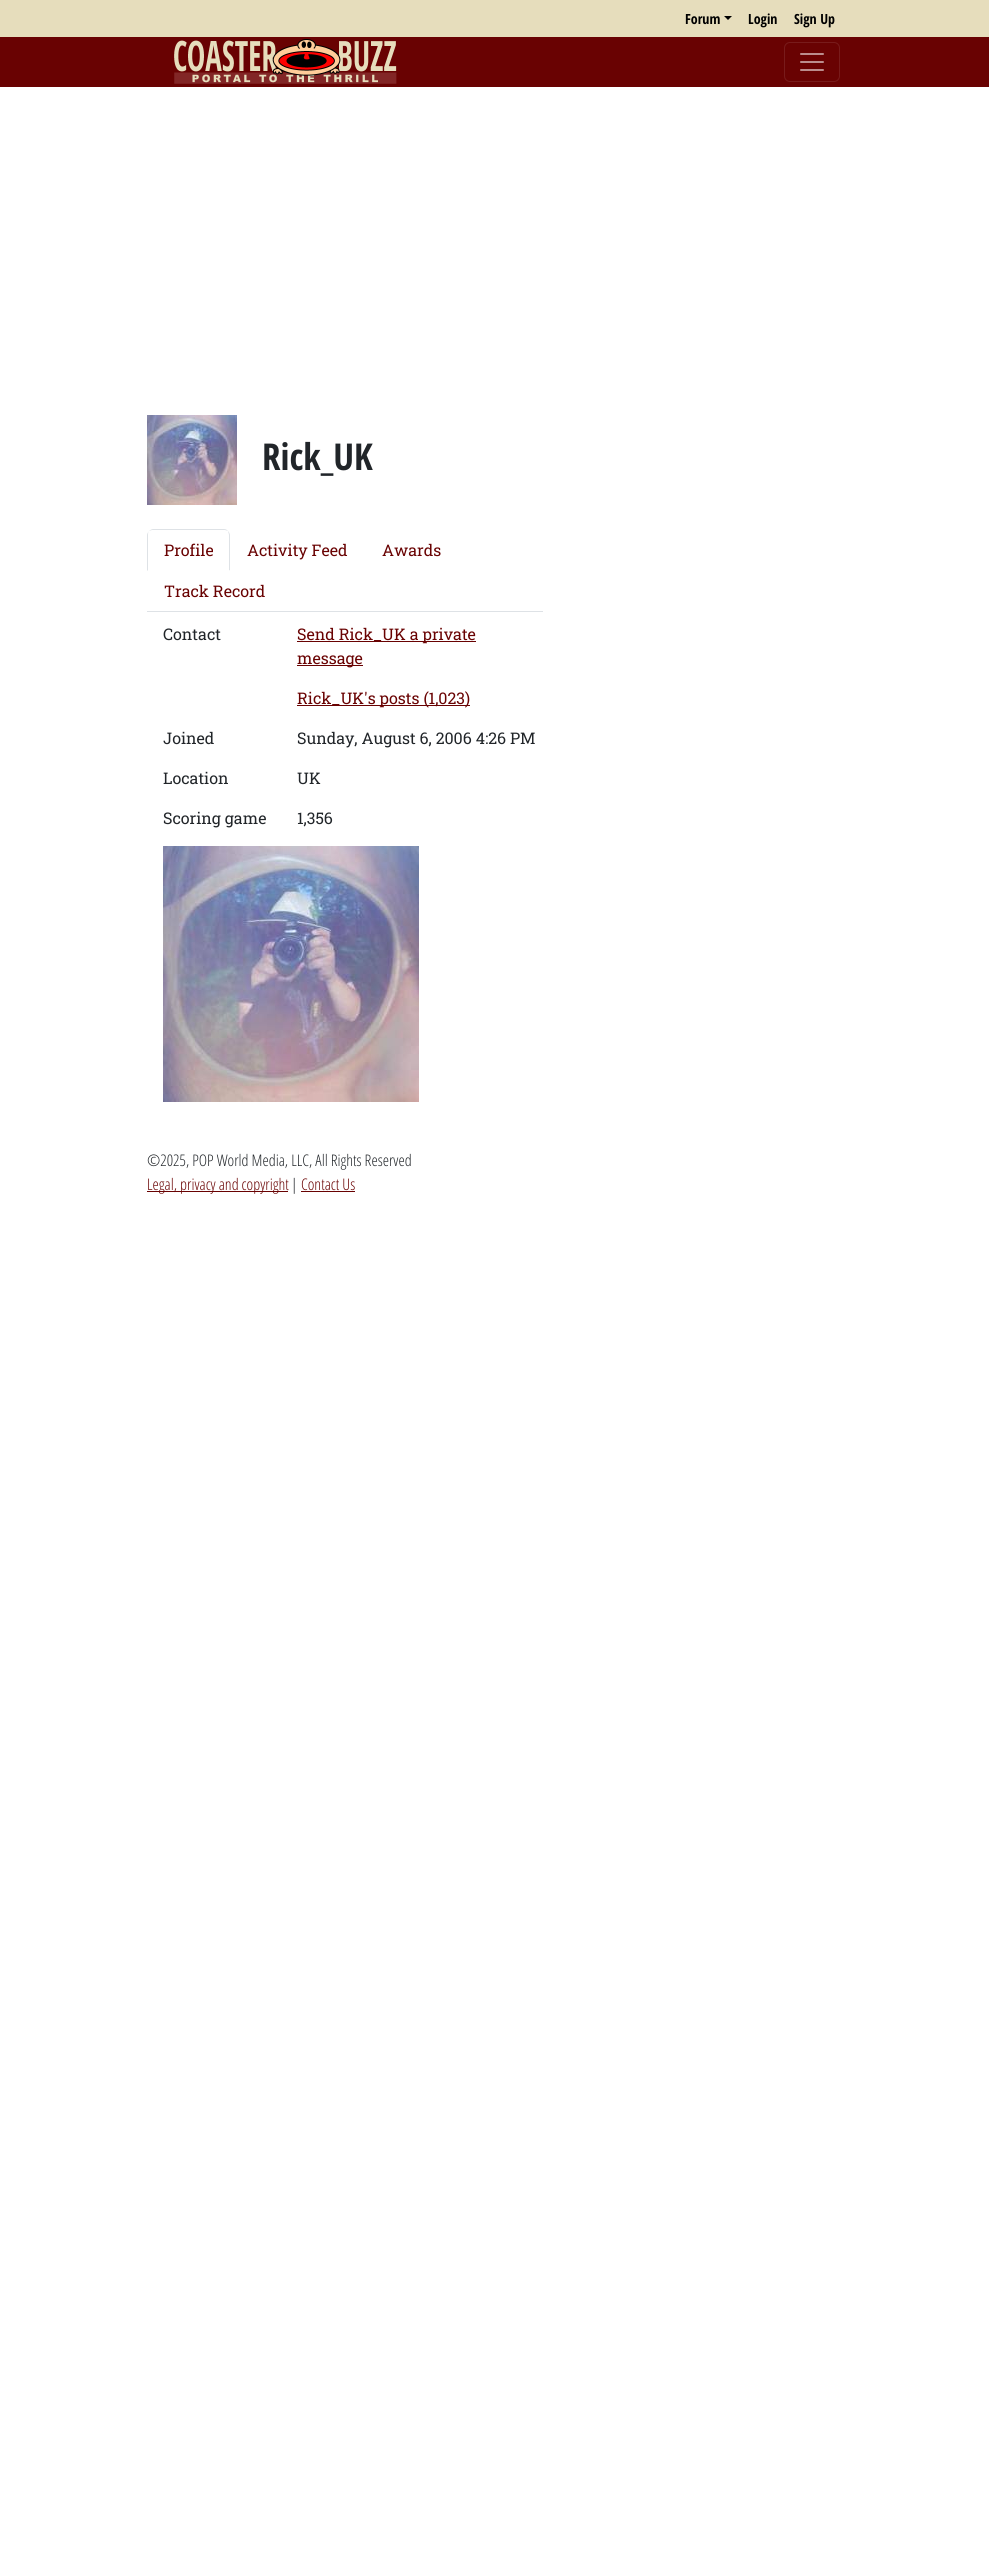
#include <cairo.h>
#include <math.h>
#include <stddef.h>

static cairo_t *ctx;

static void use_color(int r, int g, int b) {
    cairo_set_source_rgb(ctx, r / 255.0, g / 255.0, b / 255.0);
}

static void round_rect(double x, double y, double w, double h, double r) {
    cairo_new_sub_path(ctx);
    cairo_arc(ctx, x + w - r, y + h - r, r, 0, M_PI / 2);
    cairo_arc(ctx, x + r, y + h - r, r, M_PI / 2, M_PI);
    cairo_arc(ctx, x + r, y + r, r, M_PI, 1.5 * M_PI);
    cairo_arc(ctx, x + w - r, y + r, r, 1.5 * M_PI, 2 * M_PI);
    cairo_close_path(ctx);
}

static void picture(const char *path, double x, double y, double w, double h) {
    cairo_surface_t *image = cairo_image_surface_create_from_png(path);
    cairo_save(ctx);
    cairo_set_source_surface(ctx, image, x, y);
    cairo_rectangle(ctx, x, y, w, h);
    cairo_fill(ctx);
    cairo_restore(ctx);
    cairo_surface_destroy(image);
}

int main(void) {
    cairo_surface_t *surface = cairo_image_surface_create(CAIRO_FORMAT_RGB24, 989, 2551);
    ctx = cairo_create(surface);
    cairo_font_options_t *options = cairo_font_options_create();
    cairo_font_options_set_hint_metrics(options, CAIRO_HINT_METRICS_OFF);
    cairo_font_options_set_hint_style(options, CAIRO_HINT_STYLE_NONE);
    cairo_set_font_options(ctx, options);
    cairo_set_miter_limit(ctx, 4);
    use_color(255, 255, 255);
    cairo_paint(ctx);
    use_color(230, 221, 188);
    cairo_rectangle(ctx, 0, 0, 989, 37);
    cairo_fill(ctx);
    cairo_select_font_face(ctx, "Open Sans Condensed", CAIRO_FONT_SLANT_NORMAL, CAIRO_FONT_WEIGHT_BOLD);
    cairo_set_font_size(ctx, 14);
    use_color(0, 0, 0);
    cairo_move_to(ctx, 685, 24);
    cairo_show_text(ctx, "Forum");
    cairo_new_path(ctx);
    cairo_move_to(ctx, 724, 16);
    cairo_line_to(ctx, 732, 16);
    cairo_line_to(ctx, 728, 20);
    cairo_close_path(ctx);
    cairo_fill(ctx);
    cairo_move_to(ctx, 748, 24);
    cairo_show_text(ctx, "Login");
    cairo_move_to(ctx, 794, 24);
    cairo_show_text(ctx, "Sign Up");
    use_color(105, 2, 2);
    cairo_rectangle(ctx, 0, 37, 989, 50);
    cairo_fill(ctx);
    picture("img1.png", 174, 39, 223, 45);
    round_rect(784.5, 42.5, 55, 39, 5.5);
    use_color(120, 27, 27);
    cairo_set_line_width(ctx, 1);
    cairo_stroke(ctx);
    picture("img2.png", 800, 53, 24, 18);
    picture("img3.png", 147, 415, 90, 90);
    cairo_set_font_size(ctx, 37);
    use_color(33, 37, 41);
    cairo_move_to(ctx, 262, 470);
    cairo_show_text(ctx, "Rick_UK");
    use_color(222, 226, 230);
    cairo_rectangle(ctx, 147, 611, 396, 1);
    cairo_fill(ctx);
    cairo_new_path(ctx);
    cairo_move_to(ctx, 153, 529);
    cairo_curve_to(ctx, 152, 529, 150, 530, 149, 531);
    cairo_line_to(ctx, 152, 530);
    cairo_line_to(ctx, 225, 530);
    cairo_line_to(ctx, 228, 531);
    cairo_curve_to(ctx, 227, 530, 226, 529, 224, 529);
    cairo_close_path(ctx);
    cairo_fill(ctx);
    cairo_new_path(ctx);
    cairo_move_to(ctx, 230, 571);
    cairo_line_to(ctx, 230, 535);
    cairo_curve_to(ctx, 230, 534, 229, 532, 228, 531);
    cairo_curve_to(ctx, 228, 532, 229, 534, 229, 535);
    cairo_line_to(ctx, 229, 570);
    cairo_close_path(ctx);
    cairo_fill(ctx);
    use_color(255, 255, 255);
    cairo_new_path(ctx);
    cairo_move_to(ctx, 230, 571);
    cairo_line_to(ctx, 229, 570);
    cairo_line_to(ctx, 148, 570);
    cairo_line_to(ctx, 147, 571);
    cairo_close_path(ctx);
    cairo_fill(ctx);
    use_color(222, 226, 230);
    cairo_new_path(ctx);
    cairo_move_to(ctx, 147, 571);
    cairo_line_to(ctx, 148, 570);
    cairo_line_to(ctx, 148, 535);
    cairo_curve_to(ctx, 148, 534, 148, 532, 149, 531);
    cairo_curve_to(ctx, 148, 532, 147, 534, 147, 535);
    cairo_close_path(ctx);
    cairo_fill(ctx);
    cairo_select_font_face(ctx, "Roboto Slab", CAIRO_FONT_SLANT_NORMAL, CAIRO_FONT_WEIGHT_NORMAL);
    cairo_set_font_size(ctx, 16);
    use_color(105, 2, 2);
    cairo_move_to(ctx, 164, 556);
    cairo_show_text(ctx, "Profile");
    cairo_move_to(ctx, 247, 556);
    cairo_show_text(ctx, "Activity Feed");
    cairo_move_to(ctx, 382, 556);
    cairo_show_text(ctx, "Awards");
    cairo_move_to(ctx, 164, 597);
    cairo_show_text(ctx, "Track Record");
    use_color(33, 37, 41);
    cairo_move_to(ctx, 163, 640);
    cairo_show_text(ctx, "Contact");
    use_color(105, 2, 2);
    cairo_rectangle(ctx, 297, 641, 179, 1);
    cairo_fill(ctx);
    cairo_move_to(ctx, 297, 640);
    cairo_show_text(ctx, "Send Rick_UK a private");
    cairo_rectangle(ctx, 297, 665, 66, 1);
    cairo_fill(ctx);
    cairo_move_to(ctx, 297, 664);
    cairo_show_text(ctx, "message");
    cairo_rectangle(ctx, 297, 705, 173, 1);
    cairo_fill(ctx);
    cairo_move_to(ctx, 297, 704);
    cairo_show_text(ctx, "Rick_UK's posts (1,023)");
    use_color(33, 37, 41);
    cairo_move_to(ctx, 163, 744);
    cairo_show_text(ctx, "Joined");
    cairo_move_to(ctx, 297, 744);
    cairo_show_text(ctx, "Sunday, August 6, 2006 4:26 PM");
    cairo_move_to(ctx, 163, 784);
    cairo_show_text(ctx, "Location");
    cairo_move_to(ctx, 297, 784);
    cairo_show_text(ctx, "UK");
    cairo_move_to(ctx, 163, 824);
    cairo_show_text(ctx, "Scoring game");
    cairo_move_to(ctx, 297, 824);
    cairo_show_text(ctx, "1,356");
    picture("img4.png", 163, 846, 256, 256);
    cairo_select_font_face(ctx, "Open Sans Condensed Light", CAIRO_FONT_SLANT_NORMAL, CAIRO_FONT_WEIGHT_NORMAL);
    cairo_move_to(ctx, 147, 1166);
    cairo_show_text(ctx, "©2025, POP World Media, LLC, All Rights Reserved");
    use_color(105, 2, 2);
    cairo_rectangle(ctx, 147, 1191, 141, 1);
    cairo_fill(ctx);
    cairo_move_to(ctx, 147, 1190);
    cairo_show_text(ctx, "Legal, privacy and copyright");
    use_color(33, 37, 41);
    cairo_move_to(ctx, 291, 1190);
    cairo_show_text(ctx, "|");
    use_color(105, 2, 2);
    cairo_move_to(ctx, 301, 1190);
    cairo_show_text(ctx, "Contact Us");
    cairo_rectangle(ctx, 301, 1191, 54, 1);
    cairo_fill(ctx);
    cairo_surface_write_to_png(surface, "result.png");
    cairo_font_options_destroy(options);
    cairo_destroy(ctx);
    cairo_surface_destroy(surface);
    return 0;
}
